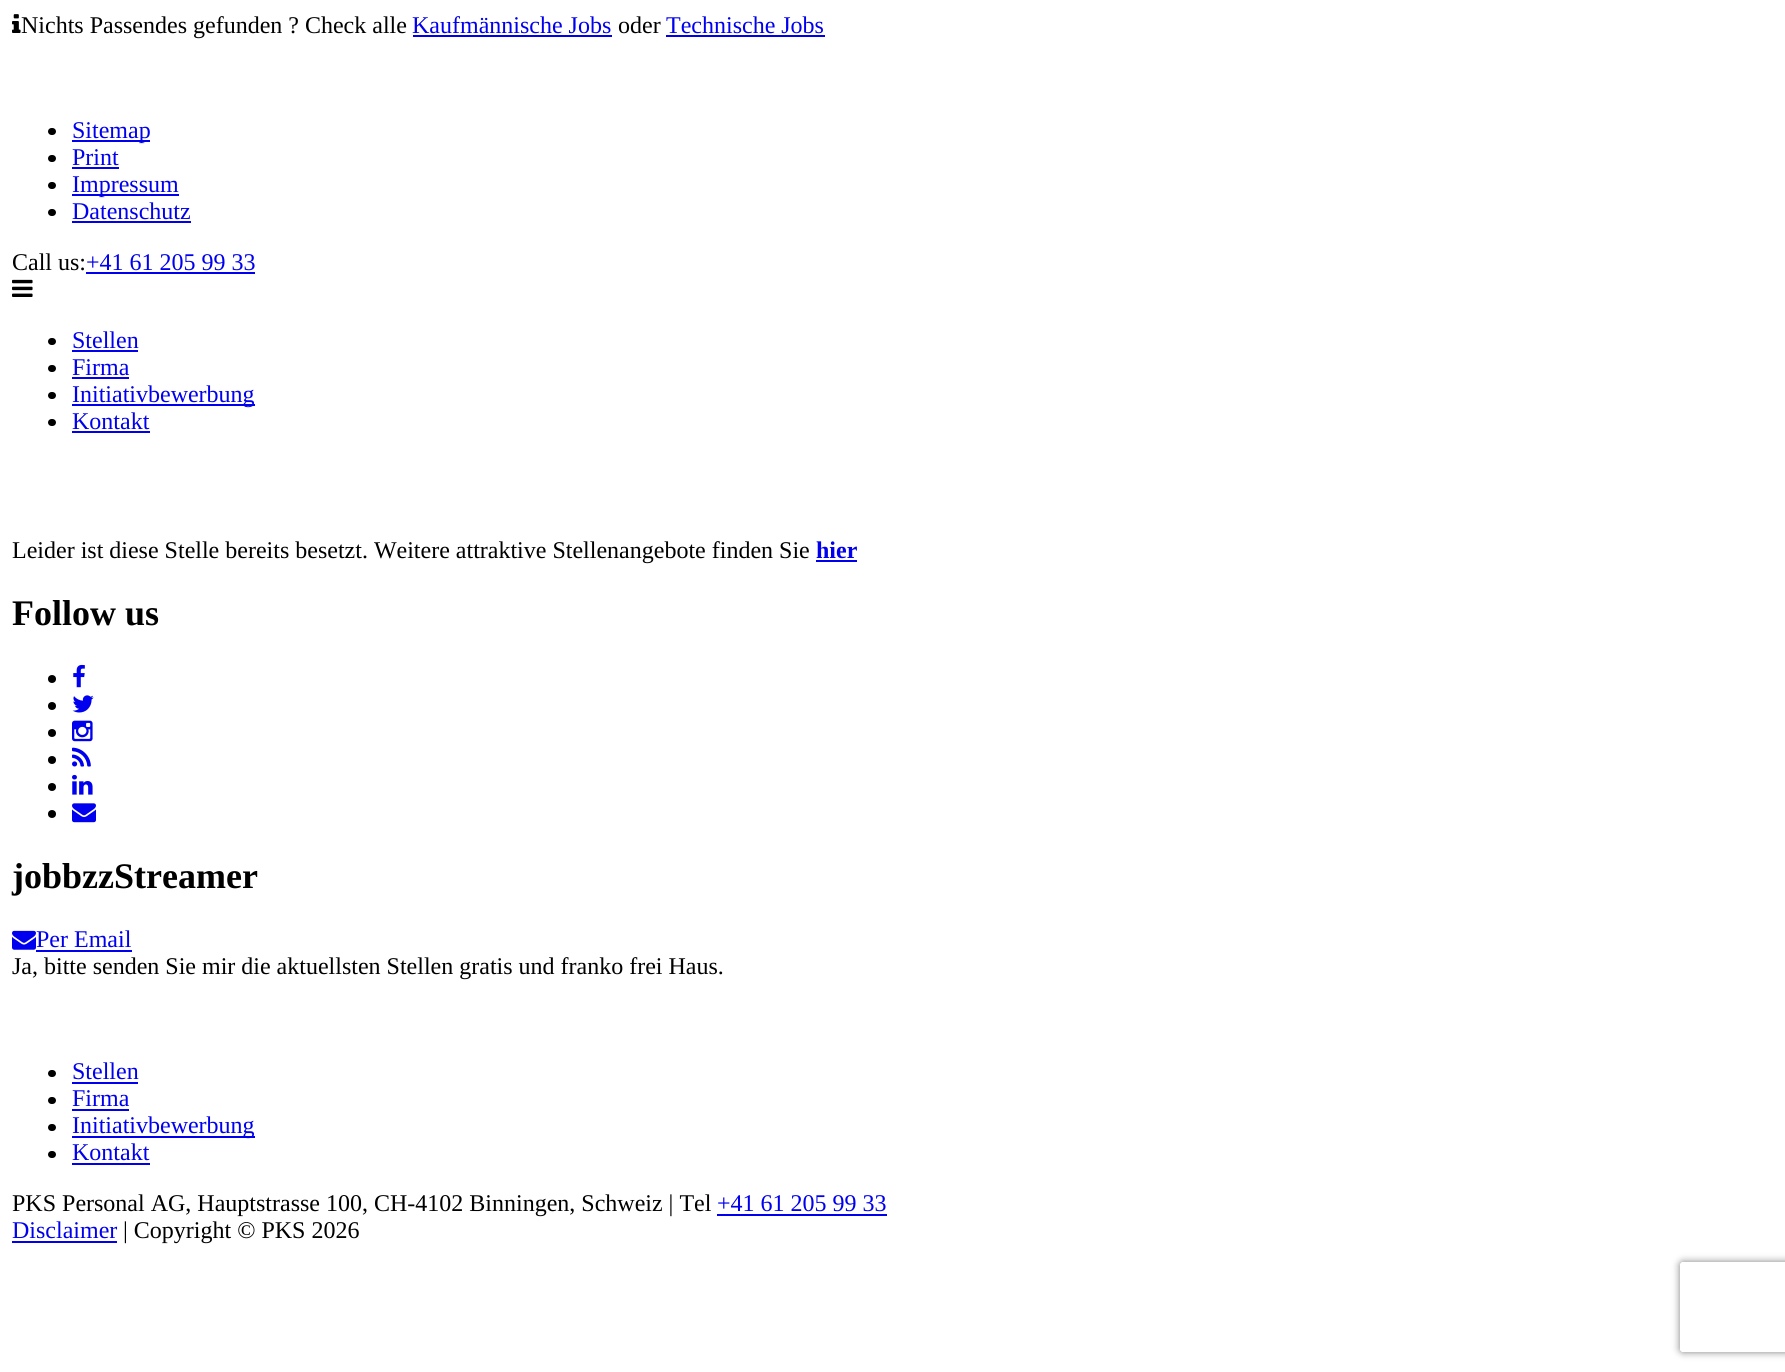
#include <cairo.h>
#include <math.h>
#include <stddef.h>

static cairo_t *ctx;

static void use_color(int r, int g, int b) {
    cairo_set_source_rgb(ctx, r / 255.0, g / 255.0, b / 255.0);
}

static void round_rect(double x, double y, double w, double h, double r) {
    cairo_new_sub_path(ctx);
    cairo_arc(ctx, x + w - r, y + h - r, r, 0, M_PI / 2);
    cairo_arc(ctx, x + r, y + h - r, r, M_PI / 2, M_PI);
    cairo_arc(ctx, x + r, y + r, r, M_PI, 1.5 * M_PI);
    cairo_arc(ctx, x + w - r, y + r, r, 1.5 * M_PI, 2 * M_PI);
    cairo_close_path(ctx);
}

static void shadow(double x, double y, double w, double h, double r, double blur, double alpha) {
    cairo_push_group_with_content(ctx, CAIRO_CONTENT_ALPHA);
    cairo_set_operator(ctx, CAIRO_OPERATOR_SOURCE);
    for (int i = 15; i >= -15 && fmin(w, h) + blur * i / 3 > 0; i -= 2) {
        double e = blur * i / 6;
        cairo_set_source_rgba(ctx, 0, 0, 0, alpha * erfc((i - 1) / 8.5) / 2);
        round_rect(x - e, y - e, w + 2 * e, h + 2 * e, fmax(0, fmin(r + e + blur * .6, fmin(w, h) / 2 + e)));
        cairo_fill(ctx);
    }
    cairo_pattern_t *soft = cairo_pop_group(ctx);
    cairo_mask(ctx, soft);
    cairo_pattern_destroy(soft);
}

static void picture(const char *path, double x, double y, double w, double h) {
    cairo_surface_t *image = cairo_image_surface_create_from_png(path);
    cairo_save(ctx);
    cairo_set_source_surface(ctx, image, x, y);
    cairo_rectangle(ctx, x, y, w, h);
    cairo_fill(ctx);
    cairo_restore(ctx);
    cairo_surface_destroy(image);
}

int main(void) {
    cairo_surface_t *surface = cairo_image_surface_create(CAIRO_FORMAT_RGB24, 1785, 1372);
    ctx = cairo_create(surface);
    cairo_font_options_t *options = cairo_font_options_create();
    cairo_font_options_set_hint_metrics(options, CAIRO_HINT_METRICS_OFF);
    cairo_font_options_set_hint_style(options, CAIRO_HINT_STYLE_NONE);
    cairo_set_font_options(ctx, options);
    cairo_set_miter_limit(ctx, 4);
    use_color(255, 255, 255);
    cairo_paint(ctx);
    picture("img1.png", 12, 14, 9, 19);
    cairo_select_font_face(ctx, "Liberation Serif", CAIRO_FONT_SLANT_NORMAL, CAIRO_FONT_WEIGHT_NORMAL);
    cairo_set_font_size(ctx, 24);
    use_color(0, 0, 0);
    cairo_move_to(ctx, 21, 33);
    cairo_show_text(ctx, "Nichts Passendes gefunden ? Check alle");
    use_color(0, 0, 238);
    cairo_move_to(ctx, 412, 33);
    cairo_show_text(ctx, "Kaufmännische Jobs");
    cairo_rectangle(ctx, 413, 35, 199, 2);
    cairo_fill(ctx);
    use_color(0, 0, 0);
    cairo_move_to(ctx, 618, 33);
    cairo_show_text(ctx, "oder");
    use_color(0, 0, 238);
    cairo_move_to(ctx, 666, 33);
    cairo_show_text(ctx, "Technische Jobs");
    cairo_rectangle(ctx, 666, 35, 159, 2);
    cairo_fill(ctx);
    use_color(0, 0, 0);
    round_rect(48, 128, 8, 7, 3.5);
    cairo_fill(ctx);
    use_color(0, 0, 238);
    cairo_rectangle(ctx, 72, 140, 78, 2);
    cairo_fill(ctx);
    cairo_move_to(ctx, 72, 138);
    cairo_show_text(ctx, "Sitemap");
    use_color(0, 0, 0);
    round_rect(48, 155, 8, 7, 3.5);
    cairo_fill(ctx);
    use_color(0, 0, 238);
    cairo_move_to(ctx, 72, 165);
    cairo_show_text(ctx, "Print");
    cairo_rectangle(ctx, 72, 167, 47, 2);
    cairo_fill(ctx);
    use_color(0, 0, 0);
    round_rect(48, 182, 8, 7, 3.5);
    cairo_fill(ctx);
    use_color(0, 0, 238);
    cairo_rectangle(ctx, 72, 194, 107, 2);
    cairo_fill(ctx);
    cairo_move_to(ctx, 72, 192);
    cairo_show_text(ctx, "Impressum");
    use_color(0, 0, 0);
    round_rect(48, 209, 8, 7, 3.5);
    cairo_fill(ctx);
    use_color(0, 0, 238);
    cairo_move_to(ctx, 72, 219);
    cairo_show_text(ctx, "Datenschutz");
    cairo_rectangle(ctx, 72, 221, 119, 2);
    cairo_fill(ctx);
    use_color(0, 0, 0);
    cairo_move_to(ctx, 12, 270);
    cairo_show_text(ctx, "Call us:");
    use_color(0, 0, 238);
    cairo_move_to(ctx, 86, 270);
    cairo_show_text(ctx, "+41 61 205 99 33");
    cairo_rectangle(ctx, 86, 272, 169, 2);
    cairo_fill(ctx);
    picture("img2.png", 12, 279, 21, 18);
    use_color(0, 0, 0);
    round_rect(48, 338, 8, 7, 3.5);
    cairo_fill(ctx);
    use_color(0, 0, 238);
    cairo_move_to(ctx, 72, 348);
    cairo_show_text(ctx, "Stellen");
    cairo_rectangle(ctx, 72, 350, 66, 2);
    cairo_fill(ctx);
    use_color(0, 0, 0);
    round_rect(48, 365, 8, 7, 3.5);
    cairo_fill(ctx);
    use_color(0, 0, 238);
    cairo_move_to(ctx, 72, 375);
    cairo_show_text(ctx, "Firma");
    cairo_rectangle(ctx, 72, 377, 57, 2);
    cairo_fill(ctx);
    use_color(0, 0, 0);
    round_rect(48, 392, 8, 7, 3.5);
    cairo_fill(ctx);
    use_color(0, 0, 238);
    cairo_rectangle(ctx, 72, 404, 183, 2);
    cairo_fill(ctx);
    cairo_move_to(ctx, 72, 402);
    cairo_show_text(ctx, "Initiativbewerbung");
    use_color(0, 0, 0);
    round_rect(48, 419, 8, 7, 3.5);
    cairo_fill(ctx);
    use_color(0, 0, 238);
    cairo_move_to(ctx, 72, 429);
    cairo_show_text(ctx, "Kontakt");
    cairo_rectangle(ctx, 72, 431, 78, 2);
    cairo_fill(ctx);
    use_color(0, 0, 0);
    cairo_move_to(ctx, 12, 558);
    cairo_show_text(ctx, "Leider ist diese Stelle bereits besetzt. Weitere attraktive Stellenangebote finden Sie");
    cairo_select_font_face(ctx, "Liberation Serif", CAIRO_FONT_SLANT_NORMAL, CAIRO_FONT_WEIGHT_BOLD);
    use_color(0, 0, 238);
    cairo_move_to(ctx, 816, 558);
    cairo_show_text(ctx, "hier");
    cairo_rectangle(ctx, 816, 560, 41, 2);
    cairo_fill(ctx);
    cairo_set_font_size(ctx, 36);
    use_color(0, 0, 0);
    cairo_move_to(ctx, 12, 625);
    cairo_show_text(ctx, "Follow us");
    cairo_new_path(ctx);
    cairo_arc(ctx, 52, 679, 4, 0, 2 * M_PI);
    cairo_fill(ctx);
    picture("img3.png", 73, 664, 12, 24);
    cairo_arc(ctx, 52, 706, 4, 0, 2 * M_PI);
    cairo_fill(ctx);
    picture("img4.png", 72, 695, 22, 18);
    cairo_arc(ctx, 52, 733, 4, 0, 2 * M_PI);
    cairo_fill(ctx);
    picture("img5.png", 72, 720, 21, 22);
    cairo_arc(ctx, 52, 760, 4, 0, 2 * M_PI);
    cairo_fill(ctx);
    picture("img6.png", 72, 747, 19, 20);
    cairo_arc(ctx, 52, 787, 4, 0, 2 * M_PI);
    cairo_fill(ctx);
    picture("img7.png", 72, 774, 21, 21);
    cairo_arc(ctx, 52, 814, 4, 0, 2 * M_PI);
    cairo_fill(ctx);
    picture("img8.png", 72, 803, 24, 20);
    cairo_move_to(ctx, 12, 888);
    cairo_show_text(ctx, "jobbzzStreamer");
    picture("img9.png", 12, 930, 24, 20);
    cairo_select_font_face(ctx, "Liberation Serif", CAIRO_FONT_SLANT_NORMAL, CAIRO_FONT_WEIGHT_NORMAL);
    cairo_set_font_size(ctx, 24);
    use_color(0, 0, 238);
    cairo_move_to(ctx, 36, 947);
    cairo_show_text(ctx, "Per Email");
    cairo_rectangle(ctx, 36, 950, 96, 2);
    cairo_fill(ctx);
    use_color(0, 0, 0);
    cairo_move_to(ctx, 12, 974);
    cairo_show_text(ctx, "Ja, bitte senden Sie mir die aktuellsten Stellen gratis und franko frei Haus.");
    round_rect(48, 1070, 8, 7, 3.5);
    cairo_fill(ctx);
    use_color(0, 0, 238);
    cairo_move_to(ctx, 72, 1079);
    cairo_show_text(ctx, "Stellen");
    cairo_rectangle(ctx, 72, 1082, 66, 2);
    cairo_fill(ctx);
    use_color(0, 0, 0);
    round_rect(48, 1097, 8, 7, 3.5);
    cairo_fill(ctx);
    use_color(0, 0, 238);
    cairo_move_to(ctx, 72, 1106);
    cairo_show_text(ctx, "Firma");
    cairo_rectangle(ctx, 72, 1109, 57, 2);
    cairo_fill(ctx);
    use_color(0, 0, 0);
    round_rect(48, 1124, 8, 7, 3.5);
    cairo_fill(ctx);
    use_color(0, 0, 238);
    cairo_rectangle(ctx, 72, 1136, 183, 2);
    cairo_fill(ctx);
    cairo_move_to(ctx, 72, 1133);
    cairo_show_text(ctx, "Initiativbewerbung");
    use_color(0, 0, 0);
    round_rect(48, 1151, 8, 7, 3.5);
    cairo_fill(ctx);
    use_color(0, 0, 238);
    cairo_move_to(ctx, 72, 1160);
    cairo_show_text(ctx, "Kontakt");
    cairo_rectangle(ctx, 72, 1163, 78, 2);
    cairo_fill(ctx);
    use_color(0, 0, 0);
    cairo_move_to(ctx, 12, 1211);
    cairo_show_text(ctx, "PKS Personal AG, Hauptstrasse 100, CH-4102 Binningen, Schweiz | Tel");
    use_color(0, 0, 238);
    cairo_move_to(ctx, 717, 1211);
    cairo_show_text(ctx, "+41 61 205 99 33");
    cairo_rectangle(ctx, 717, 1214, 170, 2);
    cairo_fill(ctx);
    cairo_move_to(ctx, 12, 1238);
    cairo_show_text(ctx, "Disclaimer");
    cairo_rectangle(ctx, 12, 1241, 105, 2);
    cairo_fill(ctx);
    use_color(0, 0, 0);
    cairo_move_to(ctx, 123, 1238);
    cairo_show_text(ctx, "| Copyright © PKS 2026");
    cairo_save(ctx);
    cairo_set_fill_rule(ctx, CAIRO_FILL_RULE_EVEN_ODD);
    cairo_new_path(ctx);
    cairo_move_to(ctx, 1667, 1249);
    cairo_line_to(ctx, 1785, 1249);
    cairo_line_to(ctx, 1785, 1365);
    cairo_line_to(ctx, 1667, 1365);
    cairo_close_path(ctx);
    cairo_move_to(ctx, 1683, 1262);
    cairo_line_to(ctx, 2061, 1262);
    cairo_curve_to(ctx, 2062.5, 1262, 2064, 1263.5, 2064, 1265);
    cairo_line_to(ctx, 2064, 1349);
    cairo_curve_to(ctx, 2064, 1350.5, 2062.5, 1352, 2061, 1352);
    cairo_line_to(ctx, 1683, 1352);
    cairo_curve_to(ctx, 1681.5, 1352, 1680, 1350.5, 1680, 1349);
    cairo_line_to(ctx, 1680, 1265);
    cairo_curve_to(ctx, 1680, 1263.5, 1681.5, 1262, 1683, 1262);
    cairo_close_path(ctx);
    cairo_clip(ctx);
    use_color(128, 128, 128);
    shadow(1680, 1262, 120, 90, 3, 4, 1);
    cairo_restore(ctx);
    cairo_surface_write_to_png(surface, "result.png");
    cairo_font_options_destroy(options);
    cairo_destroy(ctx);
    cairo_surface_destroy(surface);
    return 0;
}
